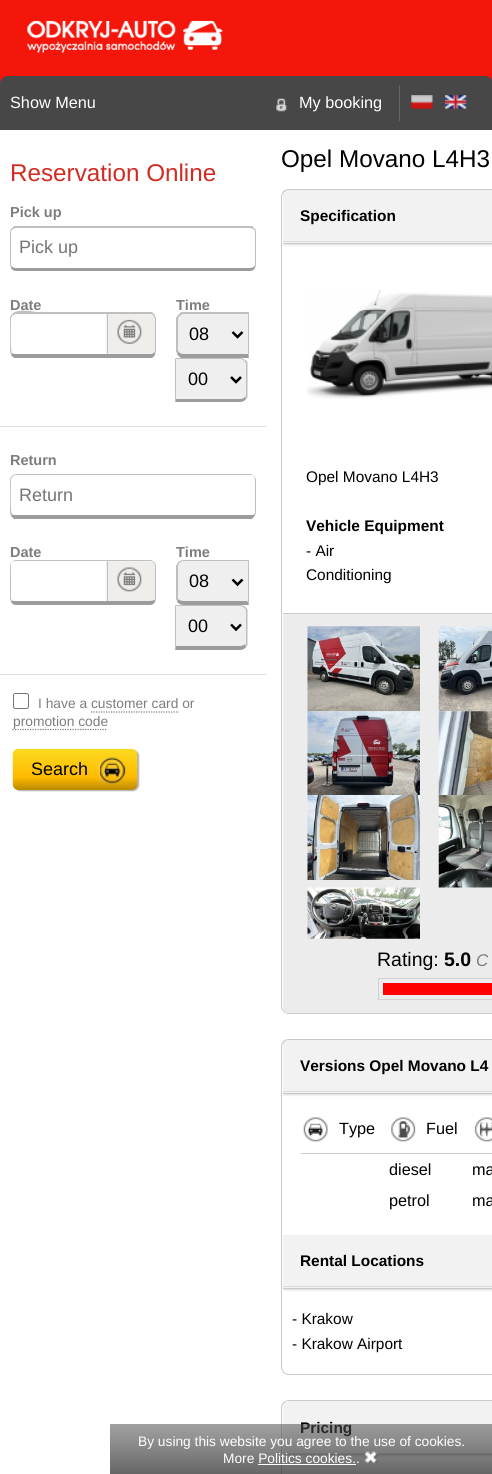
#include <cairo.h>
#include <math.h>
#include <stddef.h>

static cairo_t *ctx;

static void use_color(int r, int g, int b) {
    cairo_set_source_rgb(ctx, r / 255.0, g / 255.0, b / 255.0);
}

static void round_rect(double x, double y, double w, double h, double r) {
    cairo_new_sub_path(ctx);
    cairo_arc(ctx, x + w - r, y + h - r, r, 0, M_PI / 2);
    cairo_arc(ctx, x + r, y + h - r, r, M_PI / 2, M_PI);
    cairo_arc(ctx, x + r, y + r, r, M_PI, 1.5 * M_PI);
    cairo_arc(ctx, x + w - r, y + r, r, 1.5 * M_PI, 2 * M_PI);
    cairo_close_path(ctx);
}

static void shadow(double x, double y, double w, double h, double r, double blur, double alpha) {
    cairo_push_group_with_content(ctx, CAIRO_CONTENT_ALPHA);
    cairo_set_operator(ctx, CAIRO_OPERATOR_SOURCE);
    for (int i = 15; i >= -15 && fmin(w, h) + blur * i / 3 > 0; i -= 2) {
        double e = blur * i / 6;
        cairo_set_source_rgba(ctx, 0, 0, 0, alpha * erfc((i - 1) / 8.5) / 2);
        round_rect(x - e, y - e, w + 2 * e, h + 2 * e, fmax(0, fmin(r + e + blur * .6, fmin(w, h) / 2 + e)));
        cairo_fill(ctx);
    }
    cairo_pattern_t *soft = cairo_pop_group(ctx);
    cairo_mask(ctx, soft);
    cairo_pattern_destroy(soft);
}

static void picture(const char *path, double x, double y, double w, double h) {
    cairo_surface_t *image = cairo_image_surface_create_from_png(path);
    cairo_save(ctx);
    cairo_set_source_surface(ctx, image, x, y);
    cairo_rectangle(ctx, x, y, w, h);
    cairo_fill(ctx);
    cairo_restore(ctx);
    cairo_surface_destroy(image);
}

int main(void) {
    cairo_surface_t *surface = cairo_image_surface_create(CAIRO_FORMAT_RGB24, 492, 1474);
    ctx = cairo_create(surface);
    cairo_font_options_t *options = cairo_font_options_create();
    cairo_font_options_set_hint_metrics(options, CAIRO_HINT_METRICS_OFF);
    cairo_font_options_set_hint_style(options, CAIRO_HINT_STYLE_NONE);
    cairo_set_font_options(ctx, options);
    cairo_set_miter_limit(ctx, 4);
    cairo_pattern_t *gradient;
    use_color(244, 21, 11);
    cairo_paint(ctx);
    picture("img1.png", 27, 20, 196, 33);
    use_color(71, 71, 71);
    cairo_new_path(ctx);
    cairo_move_to(ctx, 8, 76);
    cairo_line_to(ctx, 485, 76);
    cairo_curve_to(ctx, 489.5, 76, 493, 79.5, 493, 84);
    cairo_line_to(ctx, 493, 130);
    cairo_line_to(ctx, 0, 130);
    cairo_line_to(ctx, 0, 84);
    cairo_curve_to(ctx, 0, 79.5, 3.5, 76, 8, 76);
    cairo_close_path(ctx);
    cairo_fill(ctx);
    cairo_select_font_face(ctx, "Liberation Sans", CAIRO_FONT_SLANT_NORMAL, CAIRO_FONT_WEIGHT_NORMAL);
    cairo_set_font_size(ctx, 16.25);
    use_color(255, 255, 255);
    cairo_move_to(ctx, 10, 108);
    cairo_show_text(ctx, "Show Menu");
    picture("img2.png", 276, 98, 11, 14);
    cairo_move_to(ctx, 299, 108);
    cairo_show_text(ctx, "My booking");
    use_color(101, 101, 101);
    cairo_rectangle(ctx, 399, 85, 1, 36);
    cairo_fill(ctx);
    picture("img3.png", 411, 95, 22, 14);
    picture("img4.png", 445, 95, 22, 14);
    use_color(255, 255, 255);
    cairo_rectangle(ctx, 0, 130, 492, 1344);
    cairo_fill(ctx);
    cairo_set_font_size(ctx, 24.25);
    use_color(211, 42, 34);
    cairo_move_to(ctx, 10, 181);
    cairo_show_text(ctx, "Reservation Online");
    cairo_select_font_face(ctx, "Liberation Sans", CAIRO_FONT_SLANT_NORMAL, CAIRO_FONT_WEIGHT_BOLD);
    cairo_set_font_size(ctx, 14.5);
    use_color(125, 125, 125);
    cairo_move_to(ctx, 10, 217);
    cairo_show_text(ctx, "Pick up");
    use_color(191, 191, 191);
    cairo_new_path(ctx);
    cairo_move_to(ctx, 16, 228);
    cairo_line_to(ctx, 13, 229);
    cairo_line_to(ctx, 12, 228);
    cairo_line_to(ctx, 14, 226);
    cairo_line_to(ctx, 252, 226);
    cairo_line_to(ctx, 254, 228);
    cairo_line_to(ctx, 253, 229);
    cairo_line_to(ctx, 250, 228);
    cairo_close_path(ctx);
    cairo_fill(ctx);
    cairo_new_path(ctx);
    cairo_move_to(ctx, 254.5, 228);
    cairo_curve_to(ctx, 255.5, 229, 256, 230.5, 256, 232);
    cairo_line_to(ctx, 256, 265);
    cairo_curve_to(ctx, 256, 266, 255.5, 267, 255, 268);
    cairo_line_to(ctx, 254.5, 266);
    cairo_line_to(ctx, 255, 265);
    cairo_line_to(ctx, 255, 231);
    cairo_curve_to(ctx, 254.5, 230.5, 254, 229.5, 253.5, 229);
    cairo_close_path(ctx);
    cairo_fill(ctx);
    use_color(156, 156, 156);
    cairo_new_path(ctx);
    cairo_move_to(ctx, 255, 268);
    cairo_curve_to(ctx, 254, 270, 252, 271, 250, 271);
    cairo_line_to(ctx, 16, 271);
    cairo_curve_to(ctx, 14, 271, 12, 270, 11, 268);
    cairo_line_to(ctx, 12, 266);
    cairo_curve_to(ctx, 12, 267, 14, 268, 16, 268);
    cairo_line_to(ctx, 250, 268);
    cairo_curve_to(ctx, 252, 268, 254, 267, 255, 266);
    cairo_close_path(ctx);
    cairo_fill(ctx);
    use_color(191, 191, 191);
    cairo_new_path(ctx);
    cairo_move_to(ctx, 10, 232);
    cairo_line_to(ctx, 10, 265);
    cairo_line_to(ctx, 11, 268);
    cairo_line_to(ctx, 12, 266);
    cairo_line_to(ctx, 11, 265);
    cairo_line_to(ctx, 11, 231);
    cairo_line_to(ctx, 13, 229);
    cairo_line_to(ctx, 12, 228);
    cairo_curve_to(ctx, 11, 229, 10, 231, 10, 232);
    cairo_close_path(ctx);
    cairo_fill(ctx);
    cairo_select_font_face(ctx, "Liberation Sans", CAIRO_FONT_SLANT_NORMAL, CAIRO_FONT_WEIGHT_NORMAL);
    cairo_set_font_size(ctx, 18);
    use_color(117, 117, 117);
    cairo_move_to(ctx, 19, 253);
    cairo_show_text(ctx, "Pick up");
    picture("img5.png", 106, 313, 49, 41);
    use_color(191, 191, 191);
    cairo_new_path(ctx);
    cairo_move_to(ctx, 16, 314);
    cairo_line_to(ctx, 13, 315);
    cairo_line_to(ctx, 12, 314);
    cairo_curve_to(ctx, 17, 308, 36, 312, 37, 312);
    cairo_line_to(ctx, 152, 312);
    cairo_line_to(ctx, 154, 314);
    cairo_line_to(ctx, 153, 315);
    cairo_curve_to(ctx, 153, 314, 151, 314, 150, 314);
    cairo_close_path(ctx);
    cairo_fill(ctx);
    cairo_select_font_face(ctx, "Liberation Sans", CAIRO_FONT_SLANT_NORMAL, CAIRO_FONT_WEIGHT_BOLD);
    cairo_set_font_size(ctx, 14.5);
    use_color(125, 125, 125);
    cairo_move_to(ctx, 10, 310);
    cairo_show_text(ctx, "Date");
    use_color(191, 191, 191);
    cairo_new_path(ctx);
    cairo_move_to(ctx, 154, 314);
    cairo_curve_to(ctx, 155, 316, 156, 317, 156, 319);
    cairo_line_to(ctx, 156, 351);
    cairo_line_to(ctx, 155, 354);
    cairo_line_to(ctx, 155, 352);
    cairo_curve_to(ctx, 155, 351, 155, 321, 155, 318);
    cairo_line_to(ctx, 153, 315);
    cairo_close_path(ctx);
    cairo_fill(ctx);
    use_color(156, 156, 156);
    cairo_new_path(ctx);
    cairo_move_to(ctx, 14, 358);
    cairo_line_to(ctx, 11, 355);
    cairo_line_to(ctx, 12, 353);
    cairo_curve_to(ctx, 13, 354, 15, 354, 16, 354);
    cairo_line_to(ctx, 152, 354);
    cairo_line_to(ctx, 155, 352);
    cairo_line_to(ctx, 155, 354);
    cairo_curve_to(ctx, 155, 356, 153, 357, 152, 358);
    cairo_close_path(ctx);
    cairo_fill(ctx);
    use_color(191, 191, 191);
    cairo_new_path(ctx);
    cairo_move_to(ctx, 10, 319);
    cairo_line_to(ctx, 10, 351);
    cairo_line_to(ctx, 11, 355);
    cairo_line_to(ctx, 12, 353);
    cairo_curve_to(ctx, 10, 351, 11, 321, 11, 318);
    cairo_line_to(ctx, 13, 315);
    cairo_line_to(ctx, 12, 314);
    cairo_curve_to(ctx, 11, 315, 10, 317, 10, 319);
    cairo_close_path(ctx);
    cairo_fill(ctx);
    use_color(125, 125, 125);
    cairo_move_to(ctx, 176, 310);
    cairo_show_text(ctx, "Time");
    use_color(239, 239, 239);
    cairo_new_path(ctx);
    cairo_move_to(ctx, 184, 314);
    cairo_line_to(ctx, 248, 314);
    cairo_line_to(ctx, 248, 354);
    cairo_line_to(ctx, 184, 354);
    cairo_curve_to(ctx, 180, 354, 178, 352, 178, 350);
    cairo_line_to(ctx, 178, 320);
    cairo_curve_to(ctx, 178, 317, 180, 314, 184, 314);
    cairo_close_path(ctx);
    cairo_fill(ctx);
    use_color(191, 191, 191);
    cairo_new_path(ctx);
    cairo_move_to(ctx, 184, 314);
    cairo_curve_to(ctx, 182, 314, 181, 315, 180, 316);
    cairo_line_to(ctx, 178, 315);
    cairo_line_to(ctx, 181, 312);
    cairo_line_to(ctx, 249, 312);
    cairo_line_to(ctx, 247, 314);
    cairo_close_path(ctx);
    cairo_fill(ctx);
    cairo_new_path(ctx);
    cairo_move_to(ctx, 249, 312);
    cairo_line_to(ctx, 247, 314);
    cairo_line_to(ctx, 248, 314);
    cairo_line_to(ctx, 248, 354);
    cairo_line_to(ctx, 249, 358);
    cairo_close_path(ctx);
    cairo_fill(ctx);
    use_color(156, 156, 156);
    cairo_new_path(ctx);
    cairo_move_to(ctx, 249, 358);
    cairo_line_to(ctx, 181, 358);
    cairo_curve_to(ctx, 180, 357, 178, 356, 177, 354);
    cairo_line_to(ctx, 178, 351);
    cairo_curve_to(ctx, 179, 353, 181, 354, 184, 354);
    cairo_line_to(ctx, 248, 354);
    cairo_close_path(ctx);
    cairo_fill(ctx);
    use_color(191, 191, 191);
    cairo_new_path(ctx);
    cairo_move_to(ctx, 176, 318);
    cairo_curve_to(ctx, 176.5, 317, 177.5, 315.5, 178.5, 314.5);
    cairo_line_to(ctx, 179.5, 316);
    cairo_curve_to(ctx, 178.5, 317, 178, 318.5, 178, 320);
    cairo_line_to(ctx, 178, 350);
    cairo_line_to(ctx, 178.5, 351.5);
    cairo_line_to(ctx, 177.5, 354);
    cairo_line_to(ctx, 176, 352);
    cairo_close_path(ctx);
    cairo_fill(ctx);
    cairo_new_path(ctx);
    cairo_move_to(ctx, 232.5, 332);
    cairo_line_to(ctx, 237.5, 337);
    cairo_line_to(ctx, 242.5, 332);
    use_color(0, 0, 0);
    cairo_set_line_width(ctx, 2.5);
    cairo_stroke(ctx);
    cairo_select_font_face(ctx, "Liberation Sans", CAIRO_FONT_SLANT_NORMAL, CAIRO_FONT_WEIGHT_NORMAL);
    cairo_set_font_size(ctx, 18);
    cairo_move_to(ctx, 189, 340);
    cairo_show_text(ctx, "08");
    use_color(239, 239, 239);
    cairo_new_path(ctx);
    cairo_move_to(ctx, 176, 359);
    cairo_line_to(ctx, 240, 359);
    cairo_curve_to(ctx, 243, 359, 246, 362, 246, 365);
    cairo_line_to(ctx, 246, 395);
    cairo_curve_to(ctx, 246, 397, 243, 399, 240, 399);
    cairo_line_to(ctx, 176, 399);
    cairo_close_path(ctx);
    cairo_fill(ctx);
    use_color(191, 191, 191);
    cairo_new_path(ctx);
    cairo_move_to(ctx, 245, 360);
    cairo_curve_to(ctx, 244, 359, 242, 358, 240, 358);
    cairo_line_to(ctx, 176, 358);
    cairo_line_to(ctx, 176, 359);
    cairo_line_to(ctx, 240, 359);
    cairo_curve_to(ctx, 242, 359, 243, 360, 244, 361);
    cairo_close_path(ctx);
    cairo_fill(ctx);
    cairo_new_path(ctx);
    cairo_move_to(ctx, 245, 360);
    cairo_curve_to(ctx, 246, 360.5, 247.5, 361.5, 247.5, 362.5);
    cairo_line_to(ctx, 247.5, 397.5);
    cairo_line_to(ctx, 246.5, 399);
    cairo_line_to(ctx, 245.5, 396.5);
    cairo_line_to(ctx, 246, 395);
    cairo_line_to(ctx, 246, 364);
    cairo_curve_to(ctx, 245.5, 362.5, 245, 361.5, 244, 361);
    cairo_close_path(ctx);
    cairo_fill(ctx);
    use_color(156, 156, 156);
    cairo_new_path(ctx);
    cairo_move_to(ctx, 246, 399);
    cairo_curve_to(ctx, 245, 401, 242, 402, 240, 402);
    cairo_line_to(ctx, 175, 402);
    cairo_line_to(ctx, 176, 399);
    cairo_line_to(ctx, 240, 399);
    cairo_curve_to(ctx, 242, 399, 245, 398, 245, 396);
    cairo_close_path(ctx);
    cairo_fill(ctx);
    use_color(191, 191, 191);
    cairo_new_path(ctx);
    cairo_move_to(ctx, 176, 359);
    cairo_line_to(ctx, 176, 399);
    cairo_line_to(ctx, 175, 402);
    cairo_line_to(ctx, 175, 358);
    cairo_close_path(ctx);
    cairo_fill(ctx);
    cairo_new_path(ctx);
    cairo_move_to(ctx, 231, 377);
    cairo_line_to(ctx, 236, 382);
    cairo_line_to(ctx, 241, 377);
    use_color(0, 0, 0);
    cairo_stroke(ctx);
    cairo_move_to(ctx, 188, 385);
    cairo_show_text(ctx, "00");
    use_color(220, 220, 220);
    cairo_rectangle(ctx, 0, 426, 266, 1);
    cairo_fill(ctx);
    cairo_select_font_face(ctx, "Liberation Sans", CAIRO_FONT_SLANT_NORMAL, CAIRO_FONT_WEIGHT_BOLD);
    cairo_set_font_size(ctx, 14.5);
    use_color(125, 125, 125);
    cairo_move_to(ctx, 10, 465);
    cairo_show_text(ctx, "Return");
    use_color(191, 191, 191);
    cairo_new_path(ctx);
    cairo_move_to(ctx, 16, 474);
    cairo_curve_to(ctx, 15, 474, 13, 475, 12, 476);
    cairo_line_to(ctx, 13, 476);
    cairo_line_to(ctx, 15, 475);
    cairo_line_to(ctx, 250, 475);
    cairo_curve_to(ctx, 251, 475, 253, 475, 254, 476);
    cairo_curve_to(ctx, 253, 475, 252, 474, 250, 474);
    cairo_close_path(ctx);
    cairo_fill(ctx);
    cairo_new_path(ctx);
    cairo_move_to(ctx, 255, 515.5);
    cairo_curve_to(ctx, 255.5, 514.5, 256, 513.5, 256, 512);
    cairo_line_to(ctx, 256, 480);
    cairo_curve_to(ctx, 256, 478.5, 255, 477, 254, 476);
    cairo_line_to(ctx, 253.5, 476.5);
    cairo_curve_to(ctx, 254.5, 477, 254.5, 478, 255, 479);
    cairo_line_to(ctx, 255, 512);
    cairo_line_to(ctx, 254.5, 513.5);
    cairo_close_path(ctx);
    cairo_fill(ctx);
    use_color(156, 156, 156);
    cairo_new_path(ctx);
    cairo_move_to(ctx, 14, 519);
    cairo_curve_to(ctx, 13, 518, 12, 517, 11, 516);
    cairo_line_to(ctx, 12, 514);
    cairo_curve_to(ctx, 13, 515, 14, 515, 16, 515);
    cairo_line_to(ctx, 250, 515);
    cairo_curve_to(ctx, 252, 515, 254, 515, 255, 514);
    cairo_line_to(ctx, 255, 515);
    cairo_curve_to(ctx, 254, 517, 253, 518, 252, 519);
    cairo_close_path(ctx);
    cairo_fill(ctx);
    use_color(191, 191, 191);
    cairo_new_path(ctx);
    cairo_move_to(ctx, 10, 480);
    cairo_line_to(ctx, 10, 512);
    cairo_curve_to(ctx, 10, 513, 10, 515, 11, 516);
    cairo_line_to(ctx, 12, 514);
    cairo_curve_to(ctx, 10, 512, 11, 482, 11, 479);
    cairo_line_to(ctx, 13, 476);
    cairo_line_to(ctx, 12, 476);
    cairo_curve_to(ctx, 11, 477, 10, 478, 10, 480);
    cairo_close_path(ctx);
    cairo_fill(ctx);
    cairo_select_font_face(ctx, "Liberation Sans", CAIRO_FONT_SLANT_NORMAL, CAIRO_FONT_WEIGHT_NORMAL);
    cairo_set_font_size(ctx, 18);
    use_color(117, 117, 117);
    cairo_move_to(ctx, 19, 501);
    cairo_show_text(ctx, "Return");
    cairo_select_font_face(ctx, "Liberation Sans", CAIRO_FONT_SLANT_NORMAL, CAIRO_FONT_WEIGHT_BOLD);
    cairo_set_font_size(ctx, 14.5);
    use_color(125, 125, 125);
    cairo_move_to(ctx, 10, 557);
    cairo_show_text(ctx, "Date");
    picture("img6.png", 106, 561, 49, 40);
    use_color(191, 191, 191);
    cairo_new_path(ctx);
    cairo_move_to(ctx, 16, 560);
    cairo_curve_to(ctx, 14, 560, 13, 561, 12, 562);
    cairo_line_to(ctx, 15, 561);
    cairo_line_to(ctx, 150, 561);
    cairo_curve_to(ctx, 151, 561, 153, 561, 154, 563);
    cairo_line_to(ctx, 154, 562);
    cairo_curve_to(ctx, 153, 561, 152, 560, 150, 560);
    cairo_close_path(ctx);
    cairo_fill(ctx);
    cairo_new_path(ctx);
    cairo_move_to(ctx, 154, 562);
    cairo_curve_to(ctx, 155.5, 563, 156, 564.5, 156, 566);
    cairo_line_to(ctx, 156, 599);
    cairo_curve_to(ctx, 156, 600, 155.5, 601, 155, 602);
    cairo_line_to(ctx, 154.5, 600);
    cairo_line_to(ctx, 155, 599);
    cairo_line_to(ctx, 155, 571.5);
    cairo_curve_to(ctx, 155, 569, 156, 564.5, 153.5, 562.5);
    cairo_close_path(ctx);
    cairo_fill(ctx);
    use_color(156, 156, 156);
    cairo_new_path(ctx);
    cairo_move_to(ctx, 16, 605);
    cairo_line_to(ctx, 150, 605);
    cairo_curve_to(ctx, 152, 605, 154, 604, 155, 602);
    cairo_line_to(ctx, 155, 600);
    cairo_curve_to(ctx, 154, 600, 152, 601, 150, 601);
    cairo_line_to(ctx, 16, 601);
    cairo_curve_to(ctx, 14, 601, 12, 601, 12, 600);
    cairo_line_to(ctx, 11, 602);
    cairo_curve_to(ctx, 12, 604, 14, 605, 16, 605);
    cairo_close_path(ctx);
    cairo_fill(ctx);
    use_color(191, 191, 191);
    cairo_new_path(ctx);
    cairo_move_to(ctx, 10, 566);
    cairo_line_to(ctx, 10, 599);
    cairo_line_to(ctx, 11, 602);
    cairo_line_to(ctx, 12, 600);
    cairo_line_to(ctx, 11, 599);
    cairo_line_to(ctx, 11, 572);
    cairo_curve_to(ctx, 11, 569, 10, 565, 12, 562);
    cairo_curve_to(ctx, 11, 563, 10, 564, 10, 566);
    cairo_close_path(ctx);
    cairo_fill(ctx);
    use_color(125, 125, 125);
    cairo_move_to(ctx, 176, 557);
    cairo_show_text(ctx, "Time");
    use_color(239, 239, 239);
    cairo_new_path(ctx);
    cairo_move_to(ctx, 184, 561);
    cairo_line_to(ctx, 248, 561);
    cairo_line_to(ctx, 248, 601);
    cairo_line_to(ctx, 184, 601);
    cairo_curve_to(ctx, 180, 601, 178, 600, 178, 598);
    cairo_line_to(ctx, 178, 568);
    cairo_curve_to(ctx, 178, 564, 180, 561, 184, 561);
    cairo_close_path(ctx);
    cairo_fill(ctx);
    use_color(191, 191, 191);
    cairo_new_path(ctx);
    cairo_move_to(ctx, 184, 560);
    cairo_curve_to(ctx, 182, 560, 180, 561, 178, 562);
    cairo_line_to(ctx, 179, 563);
    cairo_line_to(ctx, 183, 561);
    cairo_line_to(ctx, 248, 561);
    cairo_line_to(ctx, 249, 560);
    cairo_close_path(ctx);
    cairo_fill(ctx);
    cairo_new_path(ctx);
    cairo_move_to(ctx, 249, 560);
    cairo_line_to(ctx, 249, 605);
    cairo_line_to(ctx, 247, 601);
    cairo_line_to(ctx, 248, 601);
    cairo_line_to(ctx, 248, 561);
    cairo_close_path(ctx);
    cairo_fill(ctx);
    use_color(156, 156, 156);
    cairo_new_path(ctx);
    cairo_move_to(ctx, 249, 605);
    cairo_line_to(ctx, 247, 601);
    cairo_line_to(ctx, 184, 601);
    cairo_curve_to(ctx, 181, 601, 179, 600, 178, 599);
    cairo_line_to(ctx, 177, 602);
    cairo_curve_to(ctx, 179, 604, 181, 605, 184, 605);
    cairo_close_path(ctx);
    cairo_fill(ctx);
    use_color(191, 191, 191);
    cairo_new_path(ctx);
    cairo_move_to(ctx, 176, 566);
    cairo_curve_to(ctx, 176.5, 564.5, 177.5, 563, 178.5, 562);
    cairo_line_to(ctx, 179.5, 563);
    cairo_curve_to(ctx, 178.5, 564, 178, 565.5, 178, 566.5);
    cairo_line_to(ctx, 178, 593);
    cairo_line_to(ctx, 178, 599);
    cairo_line_to(ctx, 177.5, 602);
    cairo_line_to(ctx, 176, 599.5);
    cairo_close_path(ctx);
    cairo_fill(ctx);
    cairo_new_path(ctx);
    cairo_move_to(ctx, 232.5, 579.5);
    cairo_line_to(ctx, 237.5, 584.5);
    cairo_line_to(ctx, 242.5, 579.5);
    use_color(0, 0, 0);
    cairo_stroke(ctx);
    cairo_select_font_face(ctx, "Liberation Sans", CAIRO_FONT_SLANT_NORMAL, CAIRO_FONT_WEIGHT_NORMAL);
    cairo_set_font_size(ctx, 18);
    cairo_move_to(ctx, 189, 587);
    cairo_show_text(ctx, "08");
    use_color(239, 239, 239);
    cairo_new_path(ctx);
    cairo_move_to(ctx, 176, 606);
    cairo_line_to(ctx, 240, 606);
    cairo_curve_to(ctx, 243, 606, 246, 609, 246, 612);
    cairo_line_to(ctx, 246, 642);
    cairo_curve_to(ctx, 246, 645, 243, 646, 240, 646);
    cairo_line_to(ctx, 176, 646);
    cairo_close_path(ctx);
    cairo_fill(ctx);
    use_color(191, 191, 191);
    cairo_new_path(ctx);
    cairo_move_to(ctx, 175, 605);
    cairo_line_to(ctx, 176, 606);
    cairo_line_to(ctx, 240, 606);
    cairo_curve_to(ctx, 242, 606, 243, 607, 244, 608);
    cairo_line_to(ctx, 246, 607);
    cairo_curve_to(ctx, 244, 606, 242, 605, 240, 605);
    cairo_close_path(ctx);
    cairo_fill(ctx);
    cairo_new_path(ctx);
    cairo_move_to(ctx, 247.5, 645);
    cairo_line_to(ctx, 246.5, 647);
    cairo_line_to(ctx, 245.5, 644);
    cairo_curve_to(ctx, 246, 643.5, 246, 643, 246, 642);
    cairo_line_to(ctx, 246, 612);
    cairo_curve_to(ctx, 246, 610.5, 245.5, 609, 244.5, 608);
    cairo_line_to(ctx, 245.5, 607);
    cairo_line_to(ctx, 247.5, 609.5);
    cairo_close_path(ctx);
    cairo_fill(ctx);
    use_color(156, 156, 156);
    cairo_new_path(ctx);
    cairo_move_to(ctx, 240, 650);
    cairo_curve_to(ctx, 242, 650, 245, 649, 246, 647);
    cairo_line_to(ctx, 245, 644);
    cairo_curve_to(ctx, 244, 645, 242, 646, 240, 646);
    cairo_line_to(ctx, 176, 646);
    cairo_line_to(ctx, 175, 650);
    cairo_close_path(ctx);
    cairo_fill(ctx);
    use_color(191, 191, 191);
    cairo_new_path(ctx);
    cairo_move_to(ctx, 175, 605);
    cairo_line_to(ctx, 175, 650);
    cairo_line_to(ctx, 176, 646);
    cairo_line_to(ctx, 176, 606);
    cairo_close_path(ctx);
    cairo_fill(ctx);
    cairo_new_path(ctx);
    cairo_move_to(ctx, 231, 624.5);
    cairo_line_to(ctx, 236, 629.5);
    cairo_line_to(ctx, 241, 624.5);
    use_color(0, 0, 0);
    cairo_stroke(ctx);
    cairo_move_to(ctx, 188, 632);
    cairo_show_text(ctx, "00");
    use_color(220, 220, 220);
    cairo_rectangle(ctx, 0, 674, 266, 1);
    cairo_fill(ctx);
    round_rect(13.5, 693.5, 15, 15, 2);
    use_color(118, 118, 118);
    cairo_set_line_width(ctx, 1);
    cairo_stroke(ctx);
    cairo_set_font_size(ctx, 13.8);
    use_color(125, 125, 125);
    cairo_move_to(ctx, 38, 708);
    cairo_show_text(ctx, "I have a customer card or");
    cairo_new_path(ctx);
    cairo_move_to(ctx, 91, 712);
    cairo_line_to(ctx, 179, 712);
    cairo_set_line_width(ctx, 1.2);
    cairo_set_dash(ctx, (double[]){1.25, 1.25}, 2, 0);
    cairo_stroke(ctx);
    cairo_new_path(ctx);
    cairo_move_to(ctx, 12.5, 729.5);
    cairo_line_to(ctx, 107.5, 729.5);
    cairo_stroke(ctx);
    cairo_move_to(ctx, 13, 726);
    cairo_show_text(ctx, "promotion code");
    use_color(0, 0, 0);
    shadow(14, 750, 125, 41, 6, 0.5, 0.3);
    picture("img7.png", 12, 748, 126, 42);
    cairo_set_font_size(ctx, 18);
    use_color(0, 0, 0);
    cairo_move_to(ctx, 31, 775);
    cairo_show_text(ctx, "Search");
    cairo_set_font_size(ctx, 24.25);
    cairo_move_to(ctx, 281, 167);
    cairo_show_text(ctx, "Opel Movano L4H3");
    round_rect(281.5, 189.5, 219, 824, 7.5);
    use_color(202, 202, 202);
    cairo_set_line_width(ctx, 1);
    cairo_set_dash(ctx, NULL, 0, 0);
    cairo_stroke(ctx);
    use_color(0, 0, 0);
    shadow(284, 191, 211, 54, 0, 1, 0.15);
    use_color(242, 242, 242);
    cairo_new_path(ctx);
    cairo_move_to(ctx, 289, 190);
    cairo_line_to(ctx, 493, 190);
    cairo_line_to(ctx, 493, 244);
    cairo_line_to(ctx, 283, 244);
    cairo_line_to(ctx, 283, 196);
    cairo_curve_to(ctx, 283, 192.5, 285.5, 190, 289, 190);
    cairo_close_path(ctx);
    cairo_fill(ctx);
    use_color(218, 218, 218);
    cairo_rectangle(ctx, 283, 241, 209, 1);
    cairo_fill(ctx);
    use_color(202, 202, 202);
    cairo_rectangle(ctx, 283, 243, 209, 1);
    cairo_fill(ctx);
    cairo_select_font_face(ctx, "Liberation Sans", CAIRO_FONT_SLANT_NORMAL, CAIRO_FONT_WEIGHT_BOLD);
    cairo_set_font_size(ctx, 15.4);
    use_color(0, 0, 0);
    cairo_move_to(ctx, 300, 221);
    cairo_show_text(ctx, "Specification");
    picture("img8.png", 307, 289, 185, 110);
    cairo_select_font_face(ctx, "Liberation Sans", CAIRO_FONT_SLANT_NORMAL, CAIRO_FONT_WEIGHT_NORMAL);
    cairo_move_to(ctx, 306, 482);
    cairo_show_text(ctx, "Opel Movano L4H3");
    cairo_select_font_face(ctx, "Liberation Sans", CAIRO_FONT_SLANT_NORMAL, CAIRO_FONT_WEIGHT_BOLD);
    cairo_move_to(ctx, 306, 531);
    cairo_show_text(ctx, "Vehicle Equipment");
    cairo_select_font_face(ctx, "Liberation Sans", CAIRO_FONT_SLANT_NORMAL, CAIRO_FONT_WEIGHT_NORMAL);
    cairo_move_to(ctx, 306, 556);
    cairo_show_text(ctx, "- Air");
    cairo_move_to(ctx, 306, 580);
    cairo_show_text(ctx, "Conditioning");
    use_color(236, 236, 236);
    cairo_new_path(ctx);
    cairo_move_to(ctx, 283, 613);
    cairo_line_to(ctx, 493, 613);
    cairo_line_to(ctx, 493, 1013);
    cairo_line_to(ctx, 289, 1013);
    cairo_curve_to(ctx, 285.5, 1013, 283, 1010.5, 283, 1007);
    cairo_close_path(ctx);
    cairo_fill(ctx);
    use_color(202, 202, 202);
    cairo_rectangle(ctx, 283, 613, 209, 1);
    cairo_fill(ctx);
    picture("img9.png", 307, 626, 113, 86);
    picture("img10.png", 438, 626, 54, 86);
    picture("img11.png", 307, 711, 113, 84);
    picture("img12.png", 438, 711, 54, 84);
    picture("img13.png", 307, 795, 113, 85);
    picture("img14.png", 438, 795, 54, 93);
    picture("img15.png", 307, 887, 113, 52);
    cairo_set_font_size(ctx, 19.5);
    use_color(0, 0, 0);
    cairo_move_to(ctx, 377, 966);
    cairo_show_text(ctx, "Rating:");
    cairo_select_font_face(ctx, "Liberation Sans", CAIRO_FONT_SLANT_NORMAL, CAIRO_FONT_WEIGHT_BOLD);
    cairo_move_to(ctx, 444, 966);
    cairo_show_text(ctx, "5.0");
    cairo_select_font_face(ctx, "Liberation Sans", CAIRO_FONT_SLANT_ITALIC, CAIRO_FONT_WEIGHT_NORMAL);
    cairo_set_font_size(ctx, 17);
    use_color(125, 125, 125);
    cairo_move_to(ctx, 476, 966);
    cairo_show_text(ctx, "C");
    cairo_rectangle(ctx, 378.5, 978.5, 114, 21);
    use_color(209, 209, 209);
    cairo_stroke(ctx);
    use_color(255, 0, 0);
    cairo_rectangle(ctx, 383, 983, 109, 12);
    cairo_fill(ctx);
    round_rect(281.5, 1039.5, 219, 335, 7.5);
    use_color(202, 202, 202);
    cairo_stroke(ctx);
    use_color(0, 0, 0);
    shadow(284, 1041, 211, 54, 0, 1, 0.15);
    use_color(242, 242, 242);
    cairo_new_path(ctx);
    cairo_move_to(ctx, 289, 1040);
    cairo_line_to(ctx, 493, 1040);
    cairo_line_to(ctx, 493, 1094);
    cairo_line_to(ctx, 283, 1094);
    cairo_line_to(ctx, 283, 1046);
    cairo_curve_to(ctx, 283, 1042.5, 285.5, 1040, 289, 1040);
    cairo_close_path(ctx);
    cairo_fill(ctx);
    use_color(218, 218, 218);
    cairo_rectangle(ctx, 283, 1091, 209, 1);
    cairo_fill(ctx);
    use_color(202, 202, 202);
    cairo_rectangle(ctx, 283, 1093, 209, 1);
    cairo_fill(ctx);
    cairo_select_font_face(ctx, "Liberation Sans", CAIRO_FONT_SLANT_NORMAL, CAIRO_FONT_WEIGHT_BOLD);
    cairo_set_font_size(ctx, 15.4);
    use_color(0, 0, 0);
    cairo_move_to(ctx, 300, 1071);
    cairo_show_text(ctx, "Versions Opel Movano L4");
    use_color(202, 202, 202);
    cairo_rectangle(ctx, 301, 1153, 191, 1);
    cairo_fill(ctx);
    picture("img16.png", 303, 1117, 25, 25);
    cairo_select_font_face(ctx, "Liberation Sans", CAIRO_FONT_SLANT_NORMAL, CAIRO_FONT_WEIGHT_NORMAL);
    cairo_set_font_size(ctx, 16.25);
    use_color(0, 0, 0);
    cairo_move_to(ctx, 339, 1134);
    cairo_show_text(ctx, "Type");
    picture("img17.png", 391, 1117, 25, 25);
    cairo_move_to(ctx, 426, 1134);
    cairo_show_text(ctx, "Fuel");
    picture("img18.png", 474, 1117, 18, 25);
    cairo_move_to(ctx, 389, 1175);
    cairo_show_text(ctx, "diesel");
    cairo_move_to(ctx, 472, 1175);
    cairo_show_text(ctx, "ma");
    cairo_move_to(ctx, 389, 1206);
    cairo_show_text(ctx, "petrol");
    cairo_move_to(ctx, 472, 1206);
    cairo_show_text(ctx, "ma");
    use_color(0, 0, 0);
    shadow(284, 1236, 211, 54, 0, 1, 0.15);
    use_color(242, 242, 242);
    cairo_rectangle(ctx, 283, 1235, 209, 53);
    cairo_fill(ctx);
    use_color(218, 218, 218);
    cairo_rectangle(ctx, 283, 1286, 209, 1);
    cairo_fill(ctx);
    use_color(202, 202, 202);
    cairo_rectangle(ctx, 283, 1288, 209, 1);
    cairo_fill(ctx);
    cairo_select_font_face(ctx, "Liberation Sans", CAIRO_FONT_SLANT_NORMAL, CAIRO_FONT_WEIGHT_BOLD);
    cairo_set_font_size(ctx, 15.4);
    use_color(0, 0, 0);
    cairo_move_to(ctx, 300, 1266);
    cairo_show_text(ctx, "Rental Locations");
    cairo_select_font_face(ctx, "Liberation Sans", CAIRO_FONT_SLANT_NORMAL, CAIRO_FONT_WEIGHT_NORMAL);
    cairo_move_to(ctx, 292, 1324);
    cairo_show_text(ctx, "- Krakow");
    cairo_move_to(ctx, 292, 1349);
    cairo_show_text(ctx, "- Krakow Airport");
    round_rect(281.5, 1400.5, 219, 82, 7.5);
    use_color(202, 202, 202);
    cairo_stroke(ctx);
    use_color(0, 0, 0);
    shadow(284, 1403, 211, 53, 0, 1, 0.15);
    use_color(242, 242, 242);
    cairo_new_path(ctx);
    cairo_move_to(ctx, 289, 1401);
    cairo_line_to(ctx, 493, 1401);
    cairo_line_to(ctx, 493, 1455);
    cairo_line_to(ctx, 283, 1455);
    cairo_line_to(ctx, 283, 1407);
    cairo_curve_to(ctx, 283, 1403.5, 285.5, 1401, 289, 1401);
    cairo_close_path(ctx);
    cairo_fill(ctx);
    use_color(218, 218, 218);
    cairo_rectangle(ctx, 283, 1453, 209, 1);
    cairo_fill(ctx);
    use_color(202, 202, 202);
    cairo_rectangle(ctx, 283, 1454, 209, 1);
    cairo_fill(ctx);
    cairo_select_font_face(ctx, "Liberation Sans", CAIRO_FONT_SLANT_NORMAL, CAIRO_FONT_WEIGHT_BOLD);
    use_color(0, 0, 0);
    cairo_move_to(ctx, 300, 1433);
    cairo_show_text(ctx, "Pricing");
    gradient = cairo_pattern_create_linear(301, 1424, 301, 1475);
    cairo_pattern_add_color_stop_rgba(gradient, 0, 0.322, 0.318, 0.318, 0.54);
    cairo_pattern_add_color_stop_rgba(gradient, 1, 0.122, 0.122, 0.122, 0.69);
    cairo_set_source(ctx, gradient);
    cairo_pattern_destroy(gradient);
    cairo_rectangle(ctx, 110, 1424, 382, 50);
    cairo_fill(ctx);
    cairo_select_font_face(ctx, "Liberation Sans", CAIRO_FONT_SLANT_NORMAL, CAIRO_FONT_WEIGHT_NORMAL);
    cairo_set_font_size(ctx, 13.75);
    use_color(255, 255, 255);
    cairo_move_to(ctx, 138, 1446);
    cairo_show_text(ctx, "By using this website you agree to the use of cookies.");
    cairo_move_to(ctx, 223, 1463);
    cairo_show_text(ctx, "More Politics cookies..");
    picture("img19.png", 364, 1451, 14, 12);
    cairo_rectangle(ctx, 258, 1464, 98, 1);
    cairo_fill(ctx);
    cairo_surface_write_to_png(surface, "result.png");
    cairo_font_options_destroy(options);
    cairo_destroy(ctx);
    cairo_surface_destroy(surface);
    return 0;
}
